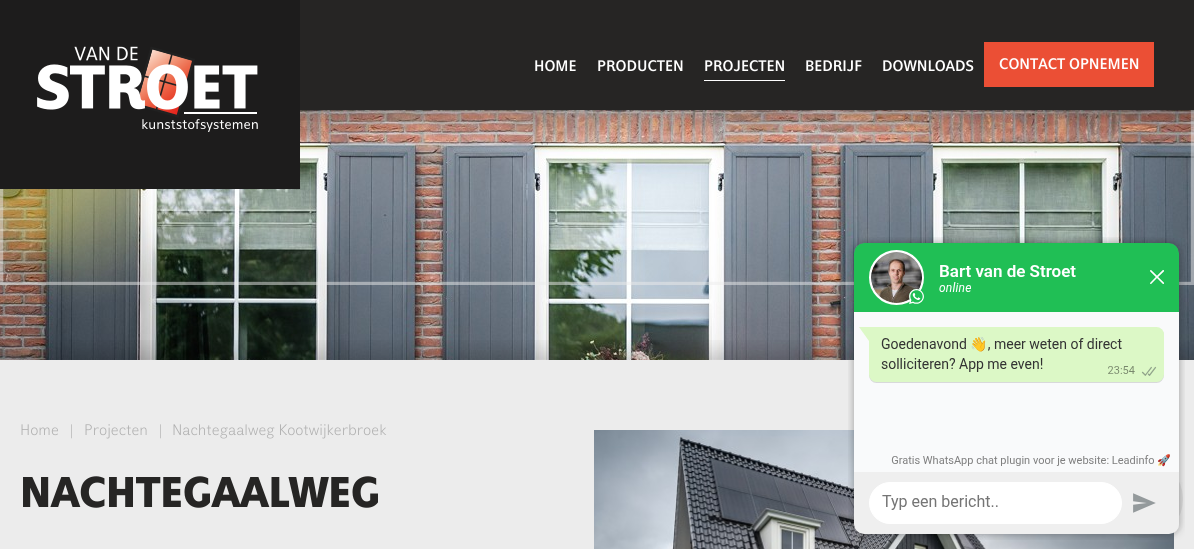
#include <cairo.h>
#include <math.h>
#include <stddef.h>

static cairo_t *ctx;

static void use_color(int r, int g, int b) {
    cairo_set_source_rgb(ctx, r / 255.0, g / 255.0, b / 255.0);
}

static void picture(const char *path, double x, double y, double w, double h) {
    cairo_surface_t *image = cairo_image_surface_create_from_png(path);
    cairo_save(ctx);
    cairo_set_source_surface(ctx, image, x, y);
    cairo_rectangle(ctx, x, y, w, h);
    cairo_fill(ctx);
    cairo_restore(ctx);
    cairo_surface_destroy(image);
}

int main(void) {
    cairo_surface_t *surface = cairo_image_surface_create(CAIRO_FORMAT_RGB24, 1194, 549);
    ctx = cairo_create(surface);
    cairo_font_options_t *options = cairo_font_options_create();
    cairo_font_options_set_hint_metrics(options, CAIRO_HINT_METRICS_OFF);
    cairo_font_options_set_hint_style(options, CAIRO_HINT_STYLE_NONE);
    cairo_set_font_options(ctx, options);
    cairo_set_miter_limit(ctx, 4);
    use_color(255, 255, 255);
    cairo_paint(ctx);
    use_color(38, 37, 36);
    cairo_rectangle(ctx, 300, 0, 894, 110);
    cairo_fill(ctx);
    picture("img2.png", 0, 110, 1194, 250);
    picture("img3.png", 0, 110, 1194, 175);
    use_color(29, 28, 28);
    cairo_rectangle(ctx, 0, 0, 300, 189);
    cairo_fill(ctx);
    picture("img1.png", 37, 46, 221, 86);
    cairo_select_font_face(ctx, "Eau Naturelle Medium", CAIRO_FONT_SLANT_NORMAL, CAIRO_FONT_WEIGHT_NORMAL);
    cairo_set_font_size(ctx, 16);
    use_color(255, 255, 255);
    cairo_move_to(ctx, 534, 71);
    cairo_show_text(ctx, "HOME");
    cairo_move_to(ctx, 597, 71);
    cairo_show_text(ctx, "PRODUCTEN");
    cairo_rectangle(ctx, 704, 80, 81, 1);
    cairo_fill(ctx);
    cairo_move_to(ctx, 704, 71);
    cairo_show_text(ctx, "PROJECTEN");
    cairo_move_to(ctx, 805, 71);
    cairo_show_text(ctx, "BEDRIJF");
    cairo_move_to(ctx, 882, 71);
    cairo_show_text(ctx, "DOWNLOADS");
    use_color(235, 79, 53);
    cairo_rectangle(ctx, 984, 42, 170, 45);
    cairo_fill(ctx);
    use_color(255, 255, 255);
    cairo_move_to(ctx, 999, 69);
    cairo_show_text(ctx, "CONTACT OPNEMEN");
    picture("img4.png", 300, 110, 894, 25);
    picture("img5.png", 0, 340, 1194, 20);
    use_color(236, 236, 236);
    cairo_rectangle(ctx, 0, 360, 1194, 189);
    cairo_fill(ctx);
    cairo_select_font_face(ctx, "Eau Naturelle Light", CAIRO_FONT_SLANT_NORMAL, CAIRO_FONT_WEIGHT_NORMAL);
    use_color(175, 175, 175);
    cairo_move_to(ctx, 20, 435);
    cairo_show_text(ctx, "Home");
    cairo_move_to(ctx, 69, 435);
    cairo_show_text(ctx, "|");
    cairo_move_to(ctx, 84, 435);
    cairo_show_text(ctx, "Projecten");
    cairo_move_to(ctx, 158, 435);
    cairo_show_text(ctx, "|");
    cairo_move_to(ctx, 172, 435);
    cairo_show_text(ctx, "Nachtegaalweg Kootwijkerbroek");
    cairo_select_font_face(ctx, "Eau Naturelle Black", CAIRO_FONT_SLANT_NORMAL, CAIRO_FONT_WEIGHT_NORMAL);
    cairo_set_font_size(ctx, 45);
    use_color(38, 37, 36);
    cairo_move_to(ctx, 20, 507);
    cairo_show_text(ctx, "NACHTEGAALWEG");
    picture("img6.png", 594, 430, 580, 119);
    picture("img8.png", 1127, 482, 56, 56);
    picture("img7.png", 848, 237, 337, 303);
    cairo_surface_write_to_png(surface, "result.png");
    cairo_font_options_destroy(options);
    cairo_destroy(ctx);
    cairo_surface_destroy(surface);
    return 0;
}
